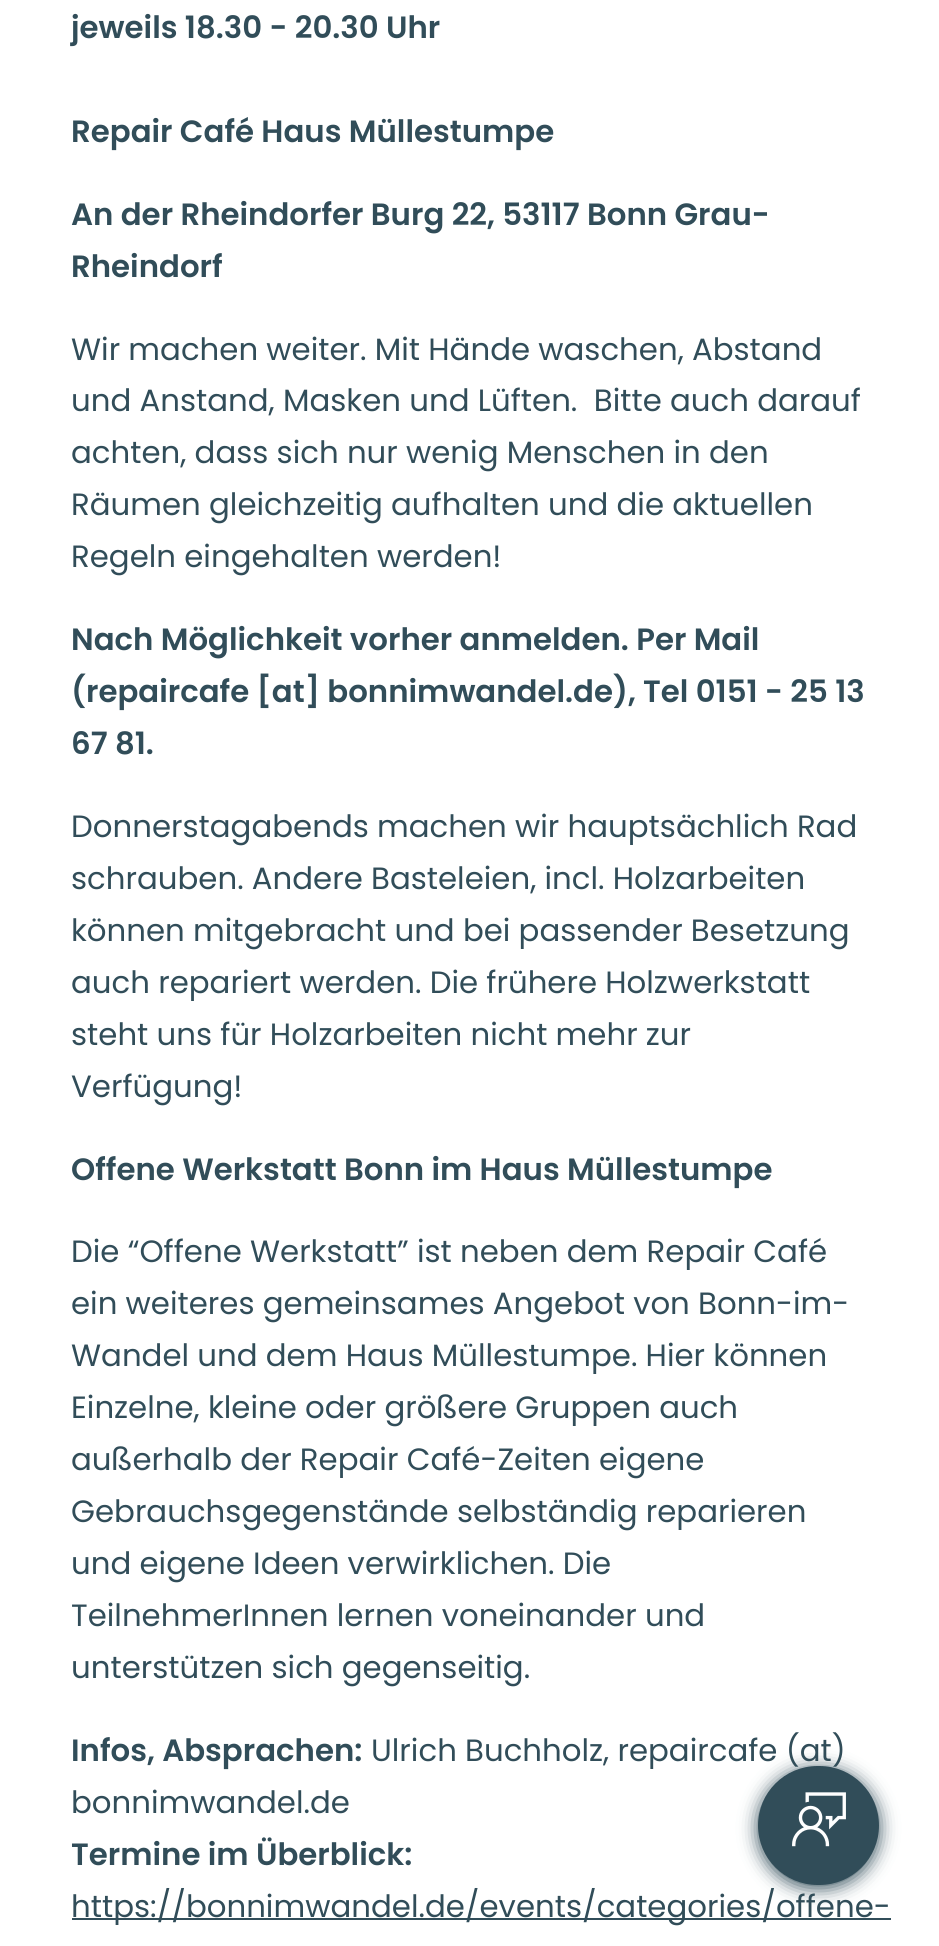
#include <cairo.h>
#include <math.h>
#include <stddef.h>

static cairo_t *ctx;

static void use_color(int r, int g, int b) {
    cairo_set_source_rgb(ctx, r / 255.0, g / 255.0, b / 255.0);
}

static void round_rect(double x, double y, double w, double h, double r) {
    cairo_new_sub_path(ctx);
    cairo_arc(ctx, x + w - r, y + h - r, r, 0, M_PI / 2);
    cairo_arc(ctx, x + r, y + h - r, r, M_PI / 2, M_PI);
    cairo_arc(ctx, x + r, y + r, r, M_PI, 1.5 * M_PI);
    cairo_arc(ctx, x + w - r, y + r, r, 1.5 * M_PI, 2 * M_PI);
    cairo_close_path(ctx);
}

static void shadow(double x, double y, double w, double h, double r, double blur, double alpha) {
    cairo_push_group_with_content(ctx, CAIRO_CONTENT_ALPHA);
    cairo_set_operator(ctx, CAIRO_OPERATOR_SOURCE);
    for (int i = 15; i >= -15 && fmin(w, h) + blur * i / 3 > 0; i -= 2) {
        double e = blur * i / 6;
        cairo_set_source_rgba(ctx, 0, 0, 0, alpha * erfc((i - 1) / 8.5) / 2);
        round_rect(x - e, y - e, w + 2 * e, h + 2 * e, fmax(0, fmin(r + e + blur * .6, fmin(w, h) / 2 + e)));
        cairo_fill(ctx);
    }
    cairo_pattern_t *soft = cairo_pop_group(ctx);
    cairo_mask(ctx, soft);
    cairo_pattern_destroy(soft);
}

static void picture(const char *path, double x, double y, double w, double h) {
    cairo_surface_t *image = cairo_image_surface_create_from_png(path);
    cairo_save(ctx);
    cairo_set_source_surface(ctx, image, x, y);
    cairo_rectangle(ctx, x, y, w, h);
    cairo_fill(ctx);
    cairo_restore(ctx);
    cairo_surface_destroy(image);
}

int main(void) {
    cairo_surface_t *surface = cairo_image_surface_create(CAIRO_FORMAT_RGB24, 939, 1946);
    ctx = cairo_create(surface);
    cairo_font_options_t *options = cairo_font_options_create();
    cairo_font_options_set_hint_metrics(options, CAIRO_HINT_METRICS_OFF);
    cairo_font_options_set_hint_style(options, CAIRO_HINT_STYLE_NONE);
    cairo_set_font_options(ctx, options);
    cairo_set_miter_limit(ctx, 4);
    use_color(255, 255, 255);
    cairo_paint(ctx);
    cairo_select_font_face(ctx, "Poppins SemiBold", CAIRO_FONT_SLANT_NORMAL, CAIRO_FONT_WEIGHT_NORMAL);
    cairo_set_font_size(ctx, 30.8);
    use_color(49, 77, 89);
    cairo_move_to(ctx, 71, 38);
    cairo_show_text(ctx, "jeweils 18.30 - 20.30 Uhr");
    cairo_move_to(ctx, 71, 142);
    cairo_show_text(ctx, "Repair Café Haus Müllestumpe");
    cairo_move_to(ctx, 71, 225);
    cairo_show_text(ctx, "An der Rheindorfer Burg 22, 53117 Bonn Grau-");
    cairo_move_to(ctx, 71, 277);
    cairo_show_text(ctx, "Rheindorf");
    cairo_select_font_face(ctx, "Poppins", CAIRO_FONT_SLANT_NORMAL, CAIRO_FONT_WEIGHT_NORMAL);
    cairo_move_to(ctx, 71, 360);
    cairo_show_text(ctx, "Wir machen weiter. Mit Hände waschen, Abstand");
    cairo_move_to(ctx, 71, 411);
    cairo_show_text(ctx, "und Anstand, Masken und Lüften.  Bitte auch darauf");
    cairo_move_to(ctx, 71, 463);
    cairo_show_text(ctx, "achten, dass sich nur wenig Menschen in den");
    cairo_move_to(ctx, 71, 515);
    cairo_show_text(ctx, "Räumen gleichzeitig aufhalten und die aktuellen");
    cairo_move_to(ctx, 71, 567);
    cairo_show_text(ctx, "Regeln eingehalten werden!");
    cairo_select_font_face(ctx, "Poppins SemiBold", CAIRO_FONT_SLANT_NORMAL, CAIRO_FONT_WEIGHT_NORMAL);
    cairo_move_to(ctx, 71, 650);
    cairo_show_text(ctx, "Nach Möglichkeit vorher anmelden. Per Mail");
    cairo_move_to(ctx, 71, 702);
    cairo_show_text(ctx, "(repaircafe [at] bonnimwandel.de), Tel 0151 - 25 13");
    cairo_move_to(ctx, 71, 754);
    cairo_show_text(ctx, "67 81.");
    cairo_select_font_face(ctx, "Poppins", CAIRO_FONT_SLANT_NORMAL, CAIRO_FONT_WEIGHT_NORMAL);
    cairo_move_to(ctx, 71, 837);
    cairo_show_text(ctx, "Donnerstagabends machen wir hauptsächlich Rad");
    cairo_move_to(ctx, 71, 889);
    cairo_show_text(ctx, "schrauben. Andere Basteleien, incl. Holzarbeiten");
    cairo_move_to(ctx, 71, 941);
    cairo_show_text(ctx, "können mitgebracht und bei passender Besetzung");
    cairo_move_to(ctx, 71, 993);
    cairo_show_text(ctx, "auch repariert werden. Die frühere Holzwerkstatt");
    cairo_move_to(ctx, 71, 1045);
    cairo_show_text(ctx, "steht uns für Holzarbeiten nicht mehr zur");
    cairo_move_to(ctx, 71, 1097);
    cairo_show_text(ctx, "Verfügung!");
    cairo_select_font_face(ctx, "Poppins SemiBold", CAIRO_FONT_SLANT_NORMAL, CAIRO_FONT_WEIGHT_NORMAL);
    cairo_move_to(ctx, 71, 1180);
    cairo_show_text(ctx, "Offene Werkstatt Bonn im Haus Müllestumpe");
    cairo_select_font_face(ctx, "Poppins", CAIRO_FONT_SLANT_NORMAL, CAIRO_FONT_WEIGHT_NORMAL);
    cairo_move_to(ctx, 71, 1262);
    cairo_show_text(ctx, "Die “Offene Werkstatt” ist neben dem Repair Café");
    cairo_move_to(ctx, 71, 1314);
    cairo_show_text(ctx, "ein weiteres gemeinsames Angebot von Bonn-im-");
    cairo_move_to(ctx, 71, 1366);
    cairo_show_text(ctx, "Wandel und dem Haus Müllestumpe. Hier können");
    cairo_move_to(ctx, 71, 1418);
    cairo_show_text(ctx, "Einzelne, kleine oder größere Gruppen auch");
    cairo_move_to(ctx, 71, 1470);
    cairo_show_text(ctx, "außerhalb der Repair Café-Zeiten eigene");
    cairo_move_to(ctx, 71, 1522);
    cairo_show_text(ctx, "Gebrauchsgegenstände selbständig reparieren");
    cairo_move_to(ctx, 71, 1574);
    cairo_show_text(ctx, "und eigene Ideen verwirklichen. Die");
    cairo_move_to(ctx, 71, 1626);
    cairo_show_text(ctx, "TeilnehmerInnen lernen voneinander und");
    cairo_move_to(ctx, 71, 1678);
    cairo_show_text(ctx, "unterstützen sich gegenseitig.");
    cairo_select_font_face(ctx, "Poppins SemiBold", CAIRO_FONT_SLANT_NORMAL, CAIRO_FONT_WEIGHT_NORMAL);
    cairo_move_to(ctx, 71, 1761);
    cairo_show_text(ctx, "Infos, Absprachen:");
    cairo_select_font_face(ctx, "Poppins", CAIRO_FONT_SLANT_NORMAL, CAIRO_FONT_WEIGHT_NORMAL);
    cairo_move_to(ctx, 371, 1761);
    cairo_show_text(ctx, "Ulrich Buchholz, repaircafe (at)");
    cairo_move_to(ctx, 71, 1813);
    cairo_show_text(ctx, "bonnimwandel.de");
    cairo_select_font_face(ctx, "Poppins SemiBold", CAIRO_FONT_SLANT_NORMAL, CAIRO_FONT_WEIGHT_NORMAL);
    cairo_move_to(ctx, 71, 1865);
    cairo_show_text(ctx, "Termine im Überblick:");
    cairo_rectangle(ctx, 72, 1918, 819, 2);
    cairo_fill(ctx);
    cairo_select_font_face(ctx, "Poppins", CAIRO_FONT_SLANT_NORMAL, CAIRO_FONT_WEIGHT_NORMAL);
    cairo_move_to(ctx, 71, 1917);
    cairo_show_text(ctx, "https://bonnimwandel.de/events/categories/offene-");
    use_color(49, 77, 89);
    shadow(758, 1769, 121, 119, 59.5, 9, 1);
    use_color(49, 77, 89);
    round_rect(758, 1766, 121, 119, 59.5);
    cairo_fill(ctx);
    picture("img1.png", 792, 1792, 54, 55);
    cairo_surface_write_to_png(surface, "result.png");
    cairo_font_options_destroy(options);
    cairo_destroy(ctx);
    cairo_surface_destroy(surface);
    return 0;
}
